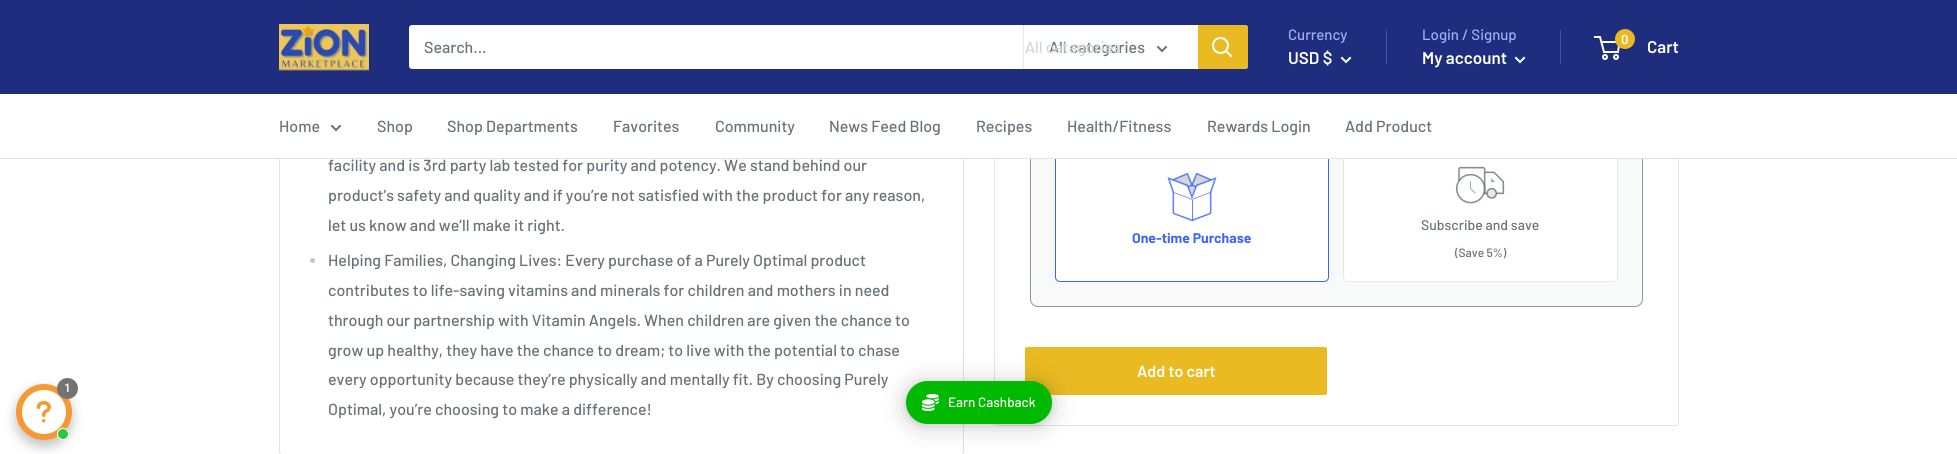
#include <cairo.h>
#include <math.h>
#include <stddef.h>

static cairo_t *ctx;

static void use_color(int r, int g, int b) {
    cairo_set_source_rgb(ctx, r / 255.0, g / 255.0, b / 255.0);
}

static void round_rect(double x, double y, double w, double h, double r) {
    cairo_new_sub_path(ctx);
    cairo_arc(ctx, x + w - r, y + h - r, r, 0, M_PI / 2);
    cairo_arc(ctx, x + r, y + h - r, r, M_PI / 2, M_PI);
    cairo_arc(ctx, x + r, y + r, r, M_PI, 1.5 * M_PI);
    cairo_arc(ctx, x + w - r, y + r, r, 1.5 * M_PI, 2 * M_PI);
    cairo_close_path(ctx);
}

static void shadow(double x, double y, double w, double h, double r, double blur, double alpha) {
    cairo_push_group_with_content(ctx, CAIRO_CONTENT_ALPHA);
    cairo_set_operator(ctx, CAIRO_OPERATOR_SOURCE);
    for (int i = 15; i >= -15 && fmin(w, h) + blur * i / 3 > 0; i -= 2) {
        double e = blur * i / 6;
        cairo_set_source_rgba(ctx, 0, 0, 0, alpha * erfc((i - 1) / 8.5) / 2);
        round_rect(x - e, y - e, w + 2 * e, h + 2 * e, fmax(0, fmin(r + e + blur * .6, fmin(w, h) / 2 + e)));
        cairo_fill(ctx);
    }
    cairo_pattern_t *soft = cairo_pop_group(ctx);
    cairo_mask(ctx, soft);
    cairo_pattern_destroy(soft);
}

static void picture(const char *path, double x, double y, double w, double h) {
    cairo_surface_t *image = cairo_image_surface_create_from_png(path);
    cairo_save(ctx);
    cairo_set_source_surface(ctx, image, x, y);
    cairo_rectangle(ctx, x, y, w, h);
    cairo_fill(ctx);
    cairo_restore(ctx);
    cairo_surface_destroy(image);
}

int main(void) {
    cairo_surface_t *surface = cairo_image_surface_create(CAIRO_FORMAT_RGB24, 1957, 454);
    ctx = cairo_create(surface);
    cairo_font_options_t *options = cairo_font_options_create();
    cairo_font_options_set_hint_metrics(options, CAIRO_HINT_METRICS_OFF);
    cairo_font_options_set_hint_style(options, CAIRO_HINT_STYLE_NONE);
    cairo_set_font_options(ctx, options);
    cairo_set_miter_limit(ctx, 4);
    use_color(255, 255, 255);
    cairo_paint(ctx);
    round_rect(279.5, -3.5, 684, 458, 2.5);
    use_color(225, 227, 228);
    cairo_set_line_width(ctx, 1);
    cairo_stroke(ctx);
    round_rect(994.5, -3.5, 684, 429, 2.5);
    cairo_stroke(ctx);
    use_color(30, 45, 125);
    cairo_rectangle(ctx, 0, 0, 1957, 94);
    cairo_fill(ctx);
    picture("img1.png", 279, 24, 90, 47);
    use_color(255, 255, 255);
    round_rect(409, 25, 839, 44, 3);
    cairo_fill(ctx);
    cairo_select_font_face(ctx, "Barlow Medium", CAIRO_FONT_SLANT_NORMAL, CAIRO_FONT_WEIGHT_NORMAL);
    cairo_set_font_size(ctx, 16);
    use_color(103, 114, 121);
    cairo_move_to(ctx, 424, 53);
    cairo_show_text(ctx, "Search...");
    use_color(227, 231, 250);
    cairo_rectangle(ctx, 1023, 25, 1, 44);
    cairo_fill(ctx);
    use_color(103, 114, 121);
    cairo_move_to(ctx, 1049, 53);
    cairo_show_text(ctx, "All categories");
    use_color(211, 214, 216);
    cairo_move_to(ctx, 1025, 53);
    cairo_show_text(ctx, "All categories");
    cairo_new_path(ctx);
    cairo_move_to(ctx, 1166, 47);
    cairo_line_to(ctx, 1162, 51);
    cairo_line_to(ctx, 1158, 47);
    use_color(103, 114, 121);
    cairo_set_line_width(ctx, 2);
    cairo_set_line_cap(ctx, CAIRO_LINE_CAP_SQUARE);
    cairo_stroke(ctx);
    use_color(234, 186, 34);
    cairo_new_path(ctx);
    cairo_move_to(ctx, 1198, 25);
    cairo_line_to(ctx, 1245, 25);
    cairo_curve_to(ctx, 1246.5, 25, 1248, 26.5, 1248, 28);
    cairo_line_to(ctx, 1248, 66);
    cairo_curve_to(ctx, 1248, 67.5, 1246.5, 69, 1245, 69);
    cairo_line_to(ctx, 1198, 69);
    cairo_close_path(ctx);
    cairo_fill(ctx);
    cairo_new_path(ctx);
    cairo_move_to(ctx, 1231, 56);
    cairo_line_to(ctx, 1226, 51);
    use_color(255, 255, 255);
    cairo_stroke(ctx);
    cairo_arc(ctx, 1220.5, 45.5, 7.5, 0, 2 * M_PI);
    cairo_set_line_cap(ctx, CAIRO_LINE_CAP_BUTT);
    cairo_stroke(ctx);
    cairo_set_font_size(ctx, 15);
    use_color(163, 175, 239);
    cairo_move_to(ctx, 1288, 40);
    cairo_show_text(ctx, "Currency");
    cairo_select_font_face(ctx, "Barlow SemiBold", CAIRO_FONT_SLANT_NORMAL, CAIRO_FONT_WEIGHT_NORMAL);
    cairo_set_font_size(ctx, 17);
    use_color(255, 255, 255);
    cairo_move_to(ctx, 1288, 64);
    cairo_show_text(ctx, "USD $");
    cairo_new_path(ctx);
    cairo_move_to(ctx, 1350, 58);
    cairo_line_to(ctx, 1346, 62);
    cairo_line_to(ctx, 1342, 58);
    cairo_set_line_cap(ctx, CAIRO_LINE_CAP_SQUARE);
    cairo_stroke(ctx);
    use_color(70, 84, 159);
    cairo_rectangle(ctx, 1386, 30, 1, 34);
    cairo_fill(ctx);
    cairo_select_font_face(ctx, "Barlow Medium", CAIRO_FONT_SLANT_NORMAL, CAIRO_FONT_WEIGHT_NORMAL);
    cairo_set_font_size(ctx, 15);
    use_color(163, 175, 239);
    cairo_move_to(ctx, 1422, 40);
    cairo_show_text(ctx, "Login / Signup");
    use_color(70, 84, 159);
    cairo_rectangle(ctx, 1560, 30, 1, 34);
    cairo_fill(ctx);
    cairo_select_font_face(ctx, "Barlow SemiBold", CAIRO_FONT_SLANT_NORMAL, CAIRO_FONT_WEIGHT_NORMAL);
    cairo_set_font_size(ctx, 17);
    use_color(255, 255, 255);
    cairo_move_to(ctx, 1422, 64);
    cairo_show_text(ctx, "My account");
    cairo_new_path(ctx);
    cairo_move_to(ctx, 1524, 58);
    cairo_line_to(ctx, 1520, 62);
    cairo_line_to(ctx, 1516, 58);
    cairo_stroke(ctx);
    cairo_arc(ctx, 1605, 57, 2, 0, 2 * M_PI);
    cairo_set_line_cap(ctx, CAIRO_LINE_CAP_BUTT);
    cairo_stroke(ctx);
    cairo_arc(ctx, 1616, 57, 2, 0, 2 * M_PI);
    cairo_stroke(ctx);
    cairo_new_path(ctx);
    cairo_move_to(ctx, 1601.5, 42);
    cairo_line_to(ctx, 1619.5, 42);
    cairo_line_to(ctx, 1618, 52);
    cairo_line_to(ctx, 1604, 52);
    cairo_line_to(ctx, 1600, 37);
    cairo_line_to(ctx, 1594, 37);
    cairo_stroke(ctx);
    use_color(234, 186, 34);
    cairo_arc(ctx, 1625, 39, 10, 0, 2 * M_PI);
    cairo_fill(ctx);
    cairo_set_font_size(ctx, 13);
    use_color(255, 255, 255);
    cairo_move_to(ctx, 1621, 44);
    cairo_show_text(ctx, "0");
    cairo_set_font_size(ctx, 17);
    cairo_move_to(ctx, 1647, 53);
    cairo_show_text(ctx, "Cart");
    use_color(248, 249, 249);
    round_rect(1030, 114, 613, 193, 8);
    cairo_fill(ctx);
    round_rect(1030.5, 114.5, 612, 192, 7.5);
    cairo_set_source_rgba(ctx, 0, 0, 0, 0.4);
    cairo_set_line_width(ctx, 1);
    cairo_stroke(ctx);
    use_color(255, 255, 255);
    round_rect(1055.5, 139.5, 273, 142, 4.5);
    cairo_fill_preserve(ctx);
    use_color(59, 99, 255);
    cairo_stroke(ctx);
    use_color(255, 255, 255);
    round_rect(1343, 139, 275, 143, 5);
    cairo_fill(ctx);
    round_rect(1343.5, 139.5, 274, 142, 4.5);
    cairo_set_source_rgba(ctx, 0, 0, 0, 0.1);
    cairo_stroke(ctx);
    use_color(255, 255, 255);
    cairo_rectangle(ctx, 279, 94, 1400, 64);
    cairo_fill(ctx);
    use_color(225, 227, 228);
    cairo_rectangle(ctx, 0, 158, 1957, 1);
    cairo_fill(ctx);
    cairo_select_font_face(ctx, "Barlow Medium", CAIRO_FONT_SLANT_NORMAL, CAIRO_FONT_WEIGHT_NORMAL);
    cairo_set_font_size(ctx, 16);
    use_color(103, 114, 121);
    cairo_move_to(ctx, 279, 132);
    cairo_show_text(ctx, "Home");
    cairo_new_path(ctx);
    cairo_move_to(ctx, 340, 126);
    cairo_line_to(ctx, 336, 130);
    cairo_line_to(ctx, 332, 126);
    cairo_set_line_width(ctx, 2);
    cairo_set_line_cap(ctx, CAIRO_LINE_CAP_SQUARE);
    cairo_stroke(ctx);
    cairo_move_to(ctx, 377, 132);
    cairo_show_text(ctx, "Shop");
    cairo_move_to(ctx, 447, 132);
    cairo_show_text(ctx, "Shop Departments");
    cairo_move_to(ctx, 613, 132);
    cairo_show_text(ctx, "Favorites");
    cairo_move_to(ctx, 715, 132);
    cairo_show_text(ctx, "Community");
    cairo_move_to(ctx, 829, 132);
    cairo_show_text(ctx, "News Feed Blog");
    cairo_move_to(ctx, 976, 132);
    cairo_show_text(ctx, "Recipes");
    cairo_move_to(ctx, 1067, 132);
    cairo_show_text(ctx, "Health/Fitness");
    cairo_move_to(ctx, 1207, 132);
    cairo_show_text(ctx, "Rewards Login");
    cairo_move_to(ctx, 1345, 132);
    cairo_show_text(ctx, "Add Product");
    use_color(0, 0, 0);
    shadow(16, 390, 56, 56, 28, 6, 0.25);
    use_color(248, 152, 51);
    cairo_arc(ctx, 44, 412, 28, 0, 2 * M_PI);
    cairo_fill(ctx);
    use_color(255, 255, 255);
    cairo_arc(ctx, 44, 412, 22, 0, 2 * M_PI);
    cairo_fill(ctx);
    picture("img2.png", 36, 401, 15, 22);
    use_color(39, 202, 64);
    cairo_arc(ctx, 63, 434, 5.5, 0, 2 * M_PI);
    cairo_fill_preserve(ctx);
    use_color(255, 255, 255);
    cairo_set_line_width(ctx, 1);
    cairo_set_line_cap(ctx, CAIRO_LINE_CAP_BUTT);
    cairo_stroke(ctx);
    use_color(115, 115, 115);
    cairo_arc(ctx, 67.5, 388.5, 10.5, 0, 2 * M_PI);
    cairo_fill(ctx);
    cairo_select_font_face(ctx, "Roboto Medium", CAIRO_FONT_SLANT_NORMAL, CAIRO_FONT_WEIGHT_NORMAL);
    cairo_set_font_size(ctx, 12);
    use_color(255, 255, 255);
    cairo_move_to(ctx, 64, 392);
    cairo_show_text(ctx, "1");
    cairo_select_font_face(ctx, "Barlow Medium", CAIRO_FONT_SLANT_NORMAL, CAIRO_FONT_WEIGHT_NORMAL);
    cairo_set_font_size(ctx, 16);
    use_color(103, 114, 121);
    cairo_move_to(ctx, 328, 171);
    cairo_show_text(ctx, "facility and is 3rd party lab tested for purity and potency. We stand behind our");
    cairo_move_to(ctx, 328, 201);
    cairo_show_text(ctx, "product’s safety and quality and if you’re not satisfied with the product for any reason,");
    cairo_move_to(ctx, 328, 231);
    cairo_show_text(ctx, "let us know and we’ll make it right.");
    use_color(194, 199, 201);
    cairo_new_path(ctx);
    cairo_arc(ctx, 312.5, 260.5, 2.5, 0, 2 * M_PI);
    cairo_fill(ctx);
    use_color(103, 114, 121);
    cairo_move_to(ctx, 328, 266);
    cairo_show_text(ctx, "Helping Families, Changing Lives: Every purchase of a Purely Optimal product");
    cairo_move_to(ctx, 328, 296);
    cairo_show_text(ctx, "contributes to life-saving vitamins and minerals for children and mothers in need");
    cairo_move_to(ctx, 328, 326);
    cairo_show_text(ctx, "through our partnership with Vitamin Angels. When children are given the chance to");
    cairo_move_to(ctx, 328, 356);
    cairo_show_text(ctx, "grow up healthy, they have the chance to dream; to live with the potential to chase");
    cairo_move_to(ctx, 328, 385);
    cairo_show_text(ctx, "every opportunity because they’re physically and mentally fit. By choosing Purely");
    cairo_move_to(ctx, 328, 415);
    cairo_show_text(ctx, "Optimal, you’re choosing to make a difference!");
    picture("img3.png", 1167, 172, 50, 50);
    cairo_select_font_face(ctx, "Barlow", CAIRO_FONT_SLANT_NORMAL, CAIRO_FONT_WEIGHT_BOLD);
    cairo_set_font_size(ctx, 14);
    use_color(59, 99, 255);
    cairo_move_to(ctx, 1132, 243);
    cairo_show_text(ctx, "One-time Purchase");
    picture("img4.png", 1455, 166, 50, 38);
    cairo_select_font_face(ctx, "Barlow Medium", CAIRO_FONT_SLANT_NORMAL, CAIRO_FONT_WEIGHT_NORMAL);
    use_color(103, 114, 121);
    cairo_move_to(ctx, 1421, 230);
    cairo_show_text(ctx, "Subscribe and save");
    cairo_set_font_size(ctx, 12);
    cairo_move_to(ctx, 1455, 257);
    cairo_show_text(ctx, "(Save 5%)");
    use_color(234, 186, 34);
    round_rect(1025, 347, 302, 48, 2);
    cairo_fill(ctx);
    cairo_select_font_face(ctx, "Barlow SemiBold", CAIRO_FONT_SLANT_NORMAL, CAIRO_FONT_WEIGHT_NORMAL);
    cairo_set_font_size(ctx, 16);
    use_color(255, 255, 255);
    cairo_move_to(ctx, 1137, 377);
    cairo_show_text(ctx, "Add to cart");
    use_color(0, 0, 0);
    shadow(906, 383, 146, 43, 21.5, 12, 0.2);
    shadow(906, 382, 146, 43, 21.5, 3, 0.1);
    use_color(0, 186, 1);
    round_rect(906, 381, 146, 43, 21.5);
    cairo_fill(ctx);
    picture("img5.png", 922, 394, 17, 17);
    cairo_select_font_face(ctx, "Barlow Medium", CAIRO_FONT_SLANT_NORMAL, CAIRO_FONT_WEIGHT_NORMAL);
    cairo_set_font_size(ctx, 13.5);
    use_color(255, 255, 255);
    cairo_move_to(ctx, 948, 407);
    cairo_show_text(ctx, "Earn Cashback");
    cairo_surface_write_to_png(surface, "result.png");
    cairo_font_options_destroy(options);
    cairo_destroy(ctx);
    cairo_surface_destroy(surface);
    return 0;
}
